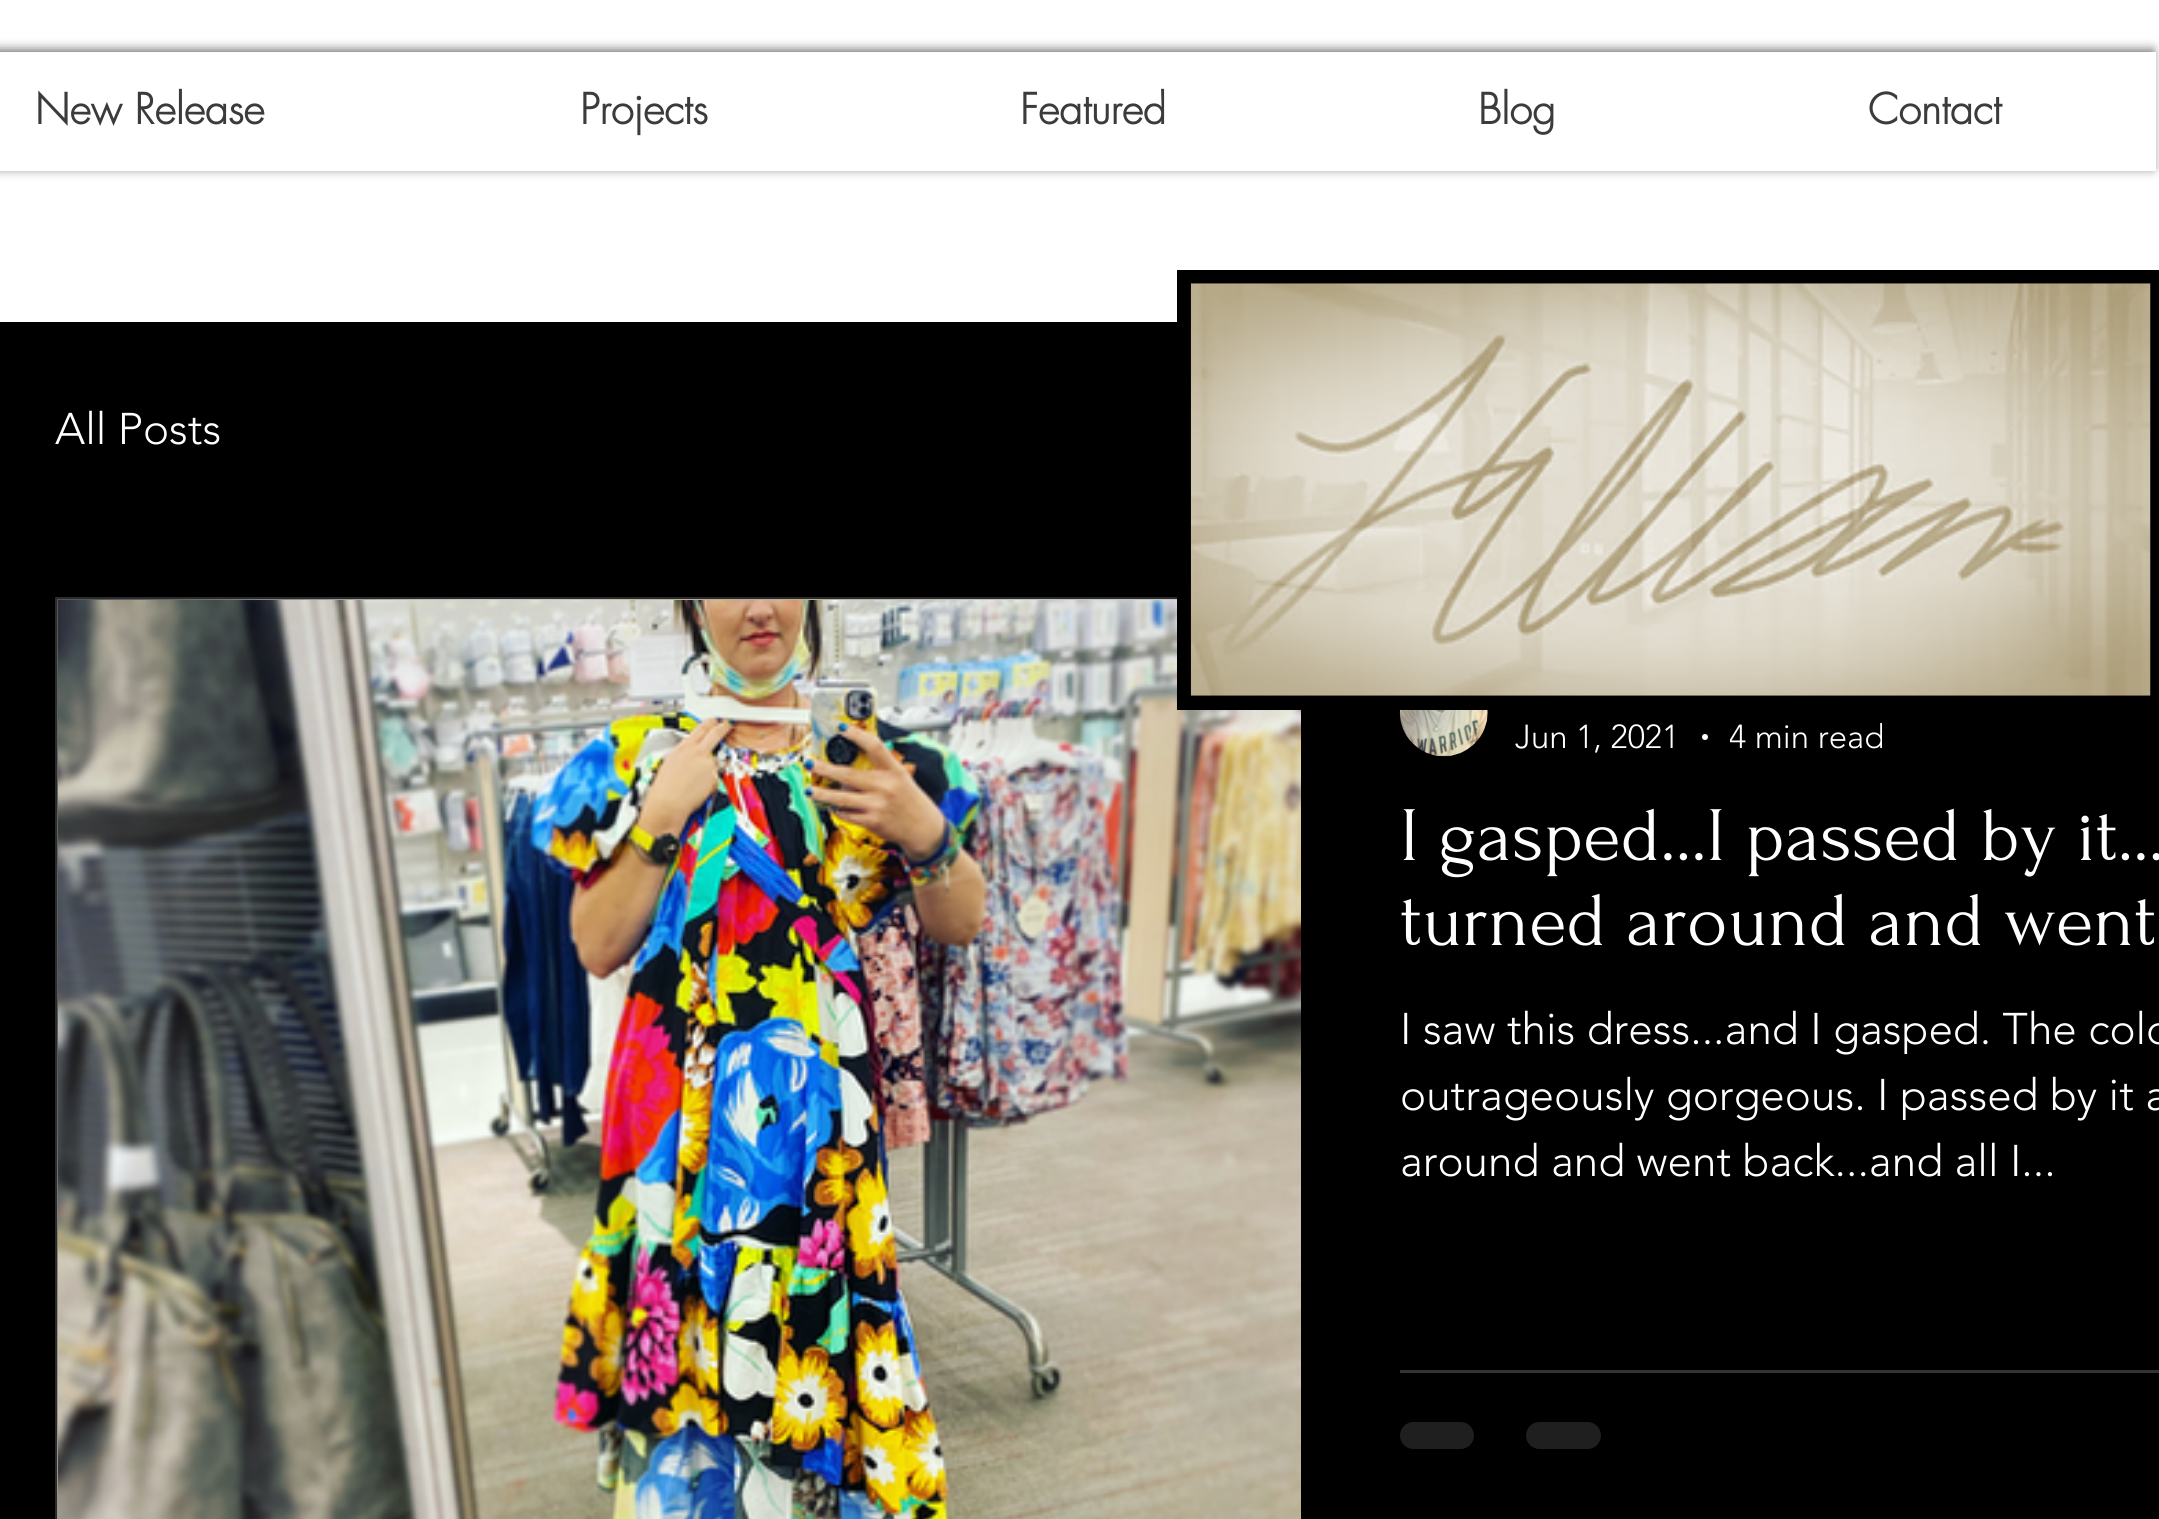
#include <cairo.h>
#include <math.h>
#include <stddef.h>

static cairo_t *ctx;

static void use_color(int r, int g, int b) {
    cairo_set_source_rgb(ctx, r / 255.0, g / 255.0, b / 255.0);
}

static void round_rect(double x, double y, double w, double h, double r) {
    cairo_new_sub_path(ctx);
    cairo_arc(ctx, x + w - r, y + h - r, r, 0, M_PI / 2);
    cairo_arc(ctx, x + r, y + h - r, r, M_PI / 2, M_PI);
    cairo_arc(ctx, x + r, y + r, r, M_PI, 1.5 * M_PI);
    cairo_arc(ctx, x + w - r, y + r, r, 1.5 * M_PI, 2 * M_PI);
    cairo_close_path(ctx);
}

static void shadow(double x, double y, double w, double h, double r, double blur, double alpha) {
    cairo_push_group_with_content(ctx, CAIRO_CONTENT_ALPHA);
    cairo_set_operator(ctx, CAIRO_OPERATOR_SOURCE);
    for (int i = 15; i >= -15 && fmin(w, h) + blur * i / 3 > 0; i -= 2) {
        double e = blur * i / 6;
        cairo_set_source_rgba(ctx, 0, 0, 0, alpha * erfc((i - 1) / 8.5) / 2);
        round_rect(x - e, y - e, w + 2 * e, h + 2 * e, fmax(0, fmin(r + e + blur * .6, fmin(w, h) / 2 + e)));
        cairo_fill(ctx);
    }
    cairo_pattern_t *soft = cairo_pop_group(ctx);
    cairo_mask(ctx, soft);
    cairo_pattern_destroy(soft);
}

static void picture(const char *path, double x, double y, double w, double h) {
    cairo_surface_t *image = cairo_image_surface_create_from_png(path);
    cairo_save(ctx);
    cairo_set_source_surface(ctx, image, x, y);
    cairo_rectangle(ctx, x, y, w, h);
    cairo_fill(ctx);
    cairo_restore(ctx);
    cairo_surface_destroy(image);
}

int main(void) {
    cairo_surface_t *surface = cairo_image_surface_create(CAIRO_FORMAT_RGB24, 2159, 1519);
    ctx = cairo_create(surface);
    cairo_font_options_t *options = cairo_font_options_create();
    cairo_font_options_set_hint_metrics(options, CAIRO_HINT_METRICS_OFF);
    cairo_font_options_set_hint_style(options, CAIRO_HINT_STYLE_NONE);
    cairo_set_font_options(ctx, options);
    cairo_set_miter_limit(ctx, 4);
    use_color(255, 255, 255);
    cairo_paint(ctx);
    cairo_save(ctx);
    cairo_set_fill_rule(ctx, CAIRO_FILL_RULE_EVEN_ODD);
    cairo_new_path(ctx);
    cairo_move_to(ctx, 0, 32);
    cairo_line_to(ctx, 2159, 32);
    cairo_line_to(ctx, 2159, 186);
    cairo_line_to(ctx, 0, 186);
    cairo_close_path(ctx);
    cairo_move_to(ctx, -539, 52);
    cairo_line_to(ctx, 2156, 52);
    cairo_line_to(ctx, 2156, 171);
    cairo_line_to(ctx, -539, 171);
    cairo_close_path(ctx);
    cairo_clip(ctx);
    use_color(0, 0, 0);
    shadow(-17, 50, 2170, 118, 0, 5.5, 0.6);
    cairo_restore(ctx);
    cairo_set_source_rgba(ctx, 1, 1, 1, 0.44);
    cairo_rectangle(ctx, 0, 52, 2156, 119);
    cairo_fill(ctx);
    cairo_select_font_face(ctx, "futura", CAIRO_FONT_SLANT_NORMAL, CAIRO_FONT_WEIGHT_BOLD);
    cairo_set_font_size(ctx, 41.25);
    use_color(59, 59, 59);
    cairo_move_to(ctx, 35, 124);
    cairo_show_text(ctx, "New Release");
    cairo_move_to(ctx, 580, 124);
    cairo_show_text(ctx, "Projects");
    cairo_move_to(ctx, 1020, 124);
    cairo_show_text(ctx, "Featured");
    cairo_move_to(ctx, 1478, 124);
    cairo_show_text(ctx, "Blog");
    cairo_move_to(ctx, 1868, 124);
    cairo_show_text(ctx, "Contact");
    use_color(0, 0, 0);
    cairo_rectangle(ctx, 0, 322, 1177, 1197);
    cairo_fill(ctx);
    cairo_rectangle(ctx, 56.5, 598.5, 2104, 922);
    use_color(44, 44, 44);
    cairo_set_line_width(ctx, 3);
    cairo_stroke(ctx);
    picture("img2.png", 57, 599, 1120, 920);
    picture("img3.png", 58, 600, 1243, 919);
    use_color(0, 0, 0);
    cairo_rectangle(ctx, 1177, 270, 982, 440);
    cairo_fill(ctx);
    picture("img1.png", 1190, 283, 961, 413);
    cairo_select_font_face(ctx, "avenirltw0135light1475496 Light", CAIRO_FONT_SLANT_NORMAL, CAIRO_FONT_WEIGHT_NORMAL);
    cairo_set_font_size(ctx, 44);
    use_color(255, 255, 255);
    cairo_move_to(ctx, 55, 444);
    cairo_show_text(ctx, "All Posts");
    use_color(0, 0, 0);
    cairo_rectangle(ctx, 1301, 710, 858, 809);
    cairo_fill(ctx);
    picture("img4.png", 1399, 710, 89, 47);
    cairo_set_font_size(ctx, 33);
    use_color(255, 255, 255);
    cairo_move_to(ctx, 1515, 748);
    cairo_show_text(ctx, "Jun 1, 2021");
    cairo_new_path(ctx);
    cairo_arc(ctx, 1705, 737, 3, 0, 2 * M_PI);
    cairo_fill(ctx);
    cairo_save(ctx);
    cairo_rectangle(ctx, 1730, 718, 154, 38);
    cairo_clip(ctx);
    cairo_move_to(ctx, 1729, 748);
    cairo_show_text(ctx, "4 min read");
    cairo_restore(ctx);
    cairo_select_font_face(ctx, "Forum", CAIRO_FONT_SLANT_NORMAL, CAIRO_FONT_WEIGHT_NORMAL);
    cairo_set_font_size(ctx, 77);
    cairo_move_to(ctx, 1400, 860);
    cairo_show_text(ctx, "I gasped...I passed by it...");
    cairo_move_to(ctx, 1400, 945);
    cairo_show_text(ctx, "turned around and went");
    cairo_select_font_face(ctx, "avenirltw0135light1475496 Light", CAIRO_FONT_SLANT_NORMAL, CAIRO_FONT_WEIGHT_NORMAL);
    cairo_set_font_size(ctx, 44);
    cairo_move_to(ctx, 1400, 1044);
    cairo_show_text(ctx, "I saw this dress...and I gasped. The colo");
    cairo_move_to(ctx, 1400, 1110);
    cairo_show_text(ctx, "outrageously gorgeous. I passed by it a");
    cairo_move_to(ctx, 1400, 1176);
    cairo_show_text(ctx, "around and went back...and all I...");
    use_color(51, 51, 51);
    cairo_rectangle(ctx, 1400, 1370, 759, 3);
    cairo_fill(ctx);
    use_color(31, 31, 31);
    round_rect(1400, 1422, 74, 27, 13.5);
    cairo_fill(ctx);
    round_rect(1526, 1422, 75, 27, 13.5);
    cairo_fill(ctx);
    cairo_surface_write_to_png(surface, "result.png");
    cairo_font_options_destroy(options);
    cairo_destroy(ctx);
    cairo_surface_destroy(surface);
    return 0;
}
